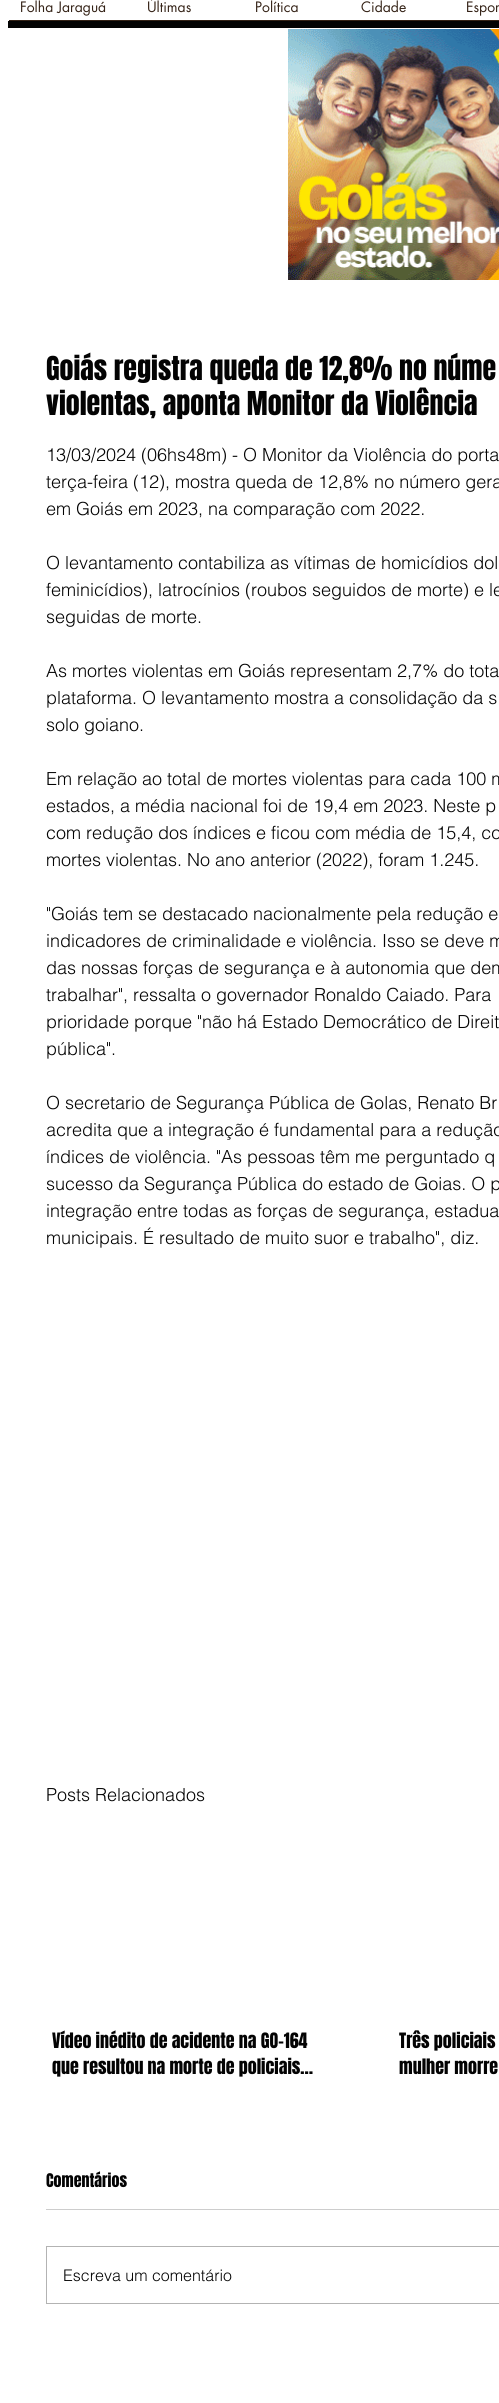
#include <cairo.h>
#include <math.h>
#include <stddef.h>

static cairo_t *ctx;

static void use_color(int r, int g, int b) {
    cairo_set_source_rgb(ctx, r / 255.0, g / 255.0, b / 255.0);
}

static void picture(const char *path, double x, double y, double w, double h) {
    cairo_surface_t *image = cairo_image_surface_create_from_png(path);
    cairo_save(ctx);
    cairo_set_source_surface(ctx, image, x, y);
    cairo_rectangle(ctx, x, y, w, h);
    cairo_fill(ctx);
    cairo_restore(ctx);
    cairo_surface_destroy(image);
}

int main(void) {
    cairo_surface_t *surface = cairo_image_surface_create(CAIRO_FORMAT_RGB24, 499, 2403);
    ctx = cairo_create(surface);
    cairo_font_options_t *options = cairo_font_options_create();
    cairo_font_options_set_hint_metrics(options, CAIRO_HINT_METRICS_OFF);
    cairo_font_options_set_hint_style(options, CAIRO_HINT_STYLE_NONE);
    cairo_set_font_options(ctx, options);
    cairo_set_miter_limit(ctx, 4);
    use_color(255, 255, 255);
    cairo_paint(ctx);
    cairo_select_font_face(ctx, "futura", CAIRO_FONT_SLANT_NORMAL, CAIRO_FONT_WEIGHT_NORMAL);
    cairo_set_font_size(ctx, 14);
    use_color(52, 34, 22);
    cairo_move_to(ctx, 20, 12);
    cairo_show_text(ctx, "Folha Jaraguá");
    cairo_move_to(ctx, 147, 12);
    cairo_show_text(ctx, "Últimas");
    cairo_move_to(ctx, 255, 12);
    cairo_show_text(ctx, "Política");
    cairo_move_to(ctx, 361, 12);
    cairo_show_text(ctx, "Cidade");
    cairo_move_to(ctx, 466, 12);
    cairo_show_text(ctx, "Espor");
    cairo_rectangle(ctx, 9, 20, 490, 1);
    cairo_fill(ctx);
    use_color(3, 3, 3);
    cairo_rectangle(ctx, 8, 21, 491, 7);
    cairo_fill(ctx);
    picture("img1.png", 288, 29, 211, 251);
    cairo_select_font_face(ctx, "Anton", CAIRO_FONT_SLANT_NORMAL, CAIRO_FONT_WEIGHT_NORMAL);
    cairo_set_font_size(ctx, 28);
    cairo_move_to(ctx, 46, 380);
    cairo_show_text(ctx, "Goiás registra queda de 12,8% no núme");
    cairo_move_to(ctx, 46, 415);
    cairo_show_text(ctx, "violentas, aponta Monitor da Violência");
    cairo_select_font_face(ctx, "helvetica Light", CAIRO_FONT_SLANT_NORMAL, CAIRO_FONT_WEIGHT_NORMAL);
    cairo_set_font_size(ctx, 18);
    cairo_move_to(ctx, 46, 461);
    cairo_show_text(ctx, "13/03/2024 (06hs48m) - O Monitor da Violência do porta");
    cairo_move_to(ctx, 46, 488);
    cairo_show_text(ctx, "terça-feira (12), mostra queda de 12,8% no número gera");
    cairo_move_to(ctx, 46, 515);
    cairo_show_text(ctx, "em Goiás em 2023, na comparação com 2022.");
    cairo_move_to(ctx, 46, 569);
    cairo_show_text(ctx, "O levantamento contabiliza as vítimas de homicídios dol");
    cairo_move_to(ctx, 46, 596);
    cairo_show_text(ctx, "feminicídios), latrocínios (roubos seguidos de morte) e le");
    cairo_move_to(ctx, 46, 623);
    cairo_show_text(ctx, "seguidas de morte.");
    cairo_move_to(ctx, 46, 677);
    cairo_show_text(ctx, "As mortes violentas em Goiás representam 2,7% do tota");
    cairo_move_to(ctx, 46, 704);
    cairo_show_text(ctx, "plataforma. O levantamento mostra a consolidação da s");
    cairo_move_to(ctx, 46, 731);
    cairo_show_text(ctx, "solo goiano.");
    cairo_move_to(ctx, 46, 785);
    cairo_show_text(ctx, "Em relação ao total de mortes violentas para cada 100 m");
    cairo_move_to(ctx, 46, 812);
    cairo_show_text(ctx, "estados, a média nacional foi de 19,4 em 2023. Neste p");
    cairo_move_to(ctx, 46, 839);
    cairo_show_text(ctx, "com redução dos índices e ficou com média de 15,4, co");
    cairo_move_to(ctx, 46, 866);
    cairo_show_text(ctx, "mortes violentas. No ano anterior (2022), foram 1.245.");
    cairo_move_to(ctx, 46, 920);
    cairo_show_text(ctx, "\"Goiás tem se destacado nacionalmente pela redução e");
    cairo_move_to(ctx, 46, 947);
    cairo_show_text(ctx, "indicadores de criminalidade e violência. Isso se deve m");
    cairo_move_to(ctx, 46, 974);
    cairo_show_text(ctx, "das nossas forças de segurança e à autonomia que dem");
    cairo_move_to(ctx, 46, 1001);
    cairo_show_text(ctx, "trabalhar\", ressalta o governador Ronaldo Caiado. Para");
    cairo_move_to(ctx, 46, 1028);
    cairo_show_text(ctx, "prioridade porque \"não há Estado Democrático de Direit");
    cairo_move_to(ctx, 46, 1055);
    cairo_show_text(ctx, "pública\".");
    cairo_move_to(ctx, 46, 1109);
    cairo_show_text(ctx, "O secretario de Segurança Pública de Golas, Renato Br");
    cairo_move_to(ctx, 46, 1136);
    cairo_show_text(ctx, "acredita que a integração é fundamental para a redução");
    cairo_move_to(ctx, 46, 1163);
    cairo_show_text(ctx, "índices de violência. \"As pessoas têm me perguntado q");
    cairo_move_to(ctx, 46, 1190);
    cairo_show_text(ctx, "sucesso da Segurança Pública do estado de Goias. O p");
    cairo_move_to(ctx, 46, 1217);
    cairo_show_text(ctx, "integração entre todas as forças de segurança, estadua");
    cairo_move_to(ctx, 46, 1244);
    cairo_show_text(ctx, "municipais. É resultado de muito suor e trabalho\", diz.");
    cairo_move_to(ctx, 46, 1801);
    cairo_show_text(ctx, "Posts Relacionados");
    cairo_select_font_face(ctx, "Anton", CAIRO_FONT_SLANT_NORMAL, CAIRO_FONT_WEIGHT_NORMAL);
    cairo_move_to(ctx, 52, 2048);
    cairo_show_text(ctx, "Vídeo inédito de acidente na GO-164");
    cairo_move_to(ctx, 52, 2074);
    cairo_show_text(ctx, "que resultou na morte de policiais…");
    cairo_move_to(ctx, 399, 2048);
    cairo_show_text(ctx, "Três policiais");
    cairo_move_to(ctx, 399, 2074);
    cairo_show_text(ctx, "mulher morre");
    cairo_set_font_size(ctx, 16);
    cairo_move_to(ctx, 46, 2187);
    cairo_show_text(ctx, "Comentários");
    use_color(205, 205, 205);
    cairo_rectangle(ctx, 46, 2209, 453, 1);
    cairo_fill(ctx);
    cairo_rectangle(ctx, 46.5, 2246.5, 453, 57);
    use_color(179, 179, 179);
    cairo_set_line_width(ctx, 1);
    cairo_stroke(ctx);
    cairo_select_font_face(ctx, "helvetica Light", CAIRO_FONT_SLANT_NORMAL, CAIRO_FONT_WEIGHT_NORMAL);
    use_color(3, 3, 3);
    cairo_move_to(ctx, 63, 2281);
    cairo_show_text(ctx, "Escreva um comentário");
    cairo_surface_write_to_png(surface, "result.png");
    cairo_font_options_destroy(options);
    cairo_destroy(ctx);
    cairo_surface_destroy(surface);
    return 0;
}
